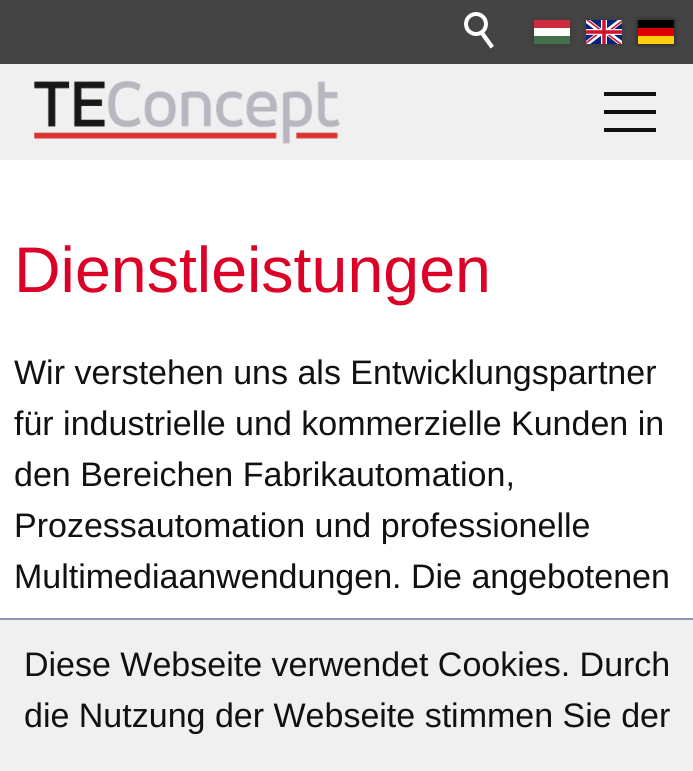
#include <cairo.h>
#include <math.h>
#include <stddef.h>

static cairo_t *ctx;

static void use_color(int r, int g, int b) {
    cairo_set_source_rgb(ctx, r / 255.0, g / 255.0, b / 255.0);
}

static void round_rect(double x, double y, double w, double h, double r) {
    cairo_new_sub_path(ctx);
    cairo_arc(ctx, x + w - r, y + h - r, r, 0, M_PI / 2);
    cairo_arc(ctx, x + r, y + h - r, r, M_PI / 2, M_PI);
    cairo_arc(ctx, x + r, y + r, r, M_PI, 1.5 * M_PI);
    cairo_arc(ctx, x + w - r, y + r, r, 1.5 * M_PI, 2 * M_PI);
    cairo_close_path(ctx);
}

static void shadow(double x, double y, double w, double h, double r, double blur, double alpha) {
    cairo_push_group_with_content(ctx, CAIRO_CONTENT_ALPHA);
    cairo_set_operator(ctx, CAIRO_OPERATOR_SOURCE);
    for (int i = 15; i >= -15 && fmin(w, h) + blur * i / 3 > 0; i -= 2) {
        double e = blur * i / 6;
        cairo_set_source_rgba(ctx, 0, 0, 0, alpha * erfc((i - 1) / 8.5) / 2);
        round_rect(x - e, y - e, w + 2 * e, h + 2 * e, fmax(0, fmin(r + e + blur * .6, fmin(w, h) / 2 + e)));
        cairo_fill(ctx);
    }
    cairo_pattern_t *soft = cairo_pop_group(ctx);
    cairo_mask(ctx, soft);
    cairo_pattern_destroy(soft);
}

static void picture(const char *path, double x, double y, double w, double h) {
    cairo_surface_t *image = cairo_image_surface_create_from_png(path);
    cairo_save(ctx);
    cairo_set_source_surface(ctx, image, x, y);
    cairo_rectangle(ctx, x, y, w, h);
    cairo_fill(ctx);
    cairo_restore(ctx);
    cairo_surface_destroy(image);
}

int main(void) {
    cairo_surface_t *surface = cairo_image_surface_create(CAIRO_FORMAT_RGB24, 693, 771);
    ctx = cairo_create(surface);
    cairo_font_options_t *options = cairo_font_options_create();
    cairo_font_options_set_hint_metrics(options, CAIRO_HINT_METRICS_OFF);
    cairo_font_options_set_hint_style(options, CAIRO_HINT_STYLE_NONE);
    cairo_set_font_options(ctx, options);
    cairo_set_miter_limit(ctx, 4);
    use_color(255, 255, 255);
    cairo_paint(ctx);
    use_color(240, 240, 240);
    cairo_rectangle(ctx, 0, 64, 693, 96);
    cairo_fill(ctx);
    use_color(68, 68, 68);
    cairo_rectangle(ctx, 0, 0, 693, 64);
    cairo_fill(ctx);
    cairo_arc(ctx, 476, 24, 10, 0, 2 * M_PI);
    use_color(255, 255, 255);
    cairo_set_line_width(ctx, 4);
    cairo_stroke(ctx);
    cairo_new_path(ctx);
    cairo_move_to(ctx, 483.5, 31.5);
    cairo_line_to(ctx, 494, 46);
    cairo_line_to(ctx, 490.5, 48.5);
    cairo_line_to(ctx, 480, 34);
    cairo_close_path(ctx);
    cairo_fill(ctx);
    use_color(0, 0, 0);
    shadow(534, 20, 36, 24, 0, 3, 0.2);
    use_color(255, 255, 255);
    cairo_rectangle(ctx, 534, 28, 36, 8);
    cairo_fill(ctx);
    use_color(205, 42, 62);
    cairo_rectangle(ctx, 534, 20, 36, 8);
    cairo_fill(ctx);
    use_color(67, 111, 77);
    cairo_rectangle(ctx, 534, 36, 36, 8);
    cairo_fill(ctx);
    use_color(0, 0, 0);
    shadow(586, 20, 36, 24, 0, 3, 0.2);
    use_color(255, 255, 255);
    cairo_rectangle(ctx, 586, 20, 36, 24);
    cairo_fill(ctx);
    picture("img1.png", 586, 20, 36, 24);
    use_color(0, 0, 0);
    shadow(638, 20, 36, 24, 0, 3, 0.5);
    use_color(0, 0, 0);
    cairo_rectangle(ctx, 638, 20, 36, 8);
    cairo_fill(ctx);
    use_color(221, 0, 0);
    cairo_rectangle(ctx, 638, 28, 36, 8);
    cairo_fill(ctx);
    use_color(255, 206, 15);
    cairo_rectangle(ctx, 638, 36, 36, 8);
    cairo_fill(ctx);
    picture("img2.png", 34, 80, 306, 64);
    use_color(19, 16, 20);
    cairo_rectangle(ctx, 604, 92, 52, 4);
    cairo_fill(ctx);
    cairo_rectangle(ctx, 604, 110, 52, 4);
    cairo_fill(ctx);
    cairo_rectangle(ctx, 604, 128, 52, 4);
    cairo_fill(ctx);
    cairo_select_font_face(ctx, "Liberation Sans", CAIRO_FONT_SLANT_NORMAL, CAIRO_FONT_WEIGHT_NORMAL);
    cairo_set_font_size(ctx, 64.5);
    use_color(219, 1, 39);
    cairo_move_to(ctx, 14, 292);
    cairo_show_text(ctx, "Dienstleistungen");
    cairo_set_font_size(ctx, 34);
    use_color(19, 16, 20);
    cairo_move_to(ctx, 14, 384);
    cairo_show_text(ctx, "Wir verstehen uns als Entwicklungspartner");
    cairo_move_to(ctx, 14, 435);
    cairo_show_text(ctx, "für industrielle und kommerzielle Kunden in");
    cairo_move_to(ctx, 14, 486);
    cairo_show_text(ctx, "den Bereichen Fabrikautomation,");
    cairo_move_to(ctx, 14, 537);
    cairo_show_text(ctx, "Prozessautomation und professionelle");
    cairo_move_to(ctx, 14, 588);
    cairo_show_text(ctx, "Multimediaanwendungen. Die angebotenen");
    use_color(240, 240, 240);
    cairo_rectangle(ctx, 0, 620, 693, 151);
    cairo_fill(ctx);
    use_color(146, 149, 174);
    cairo_rectangle(ctx, 0, 618, 693, 2);
    cairo_fill(ctx);
    use_color(19, 16, 20);
    cairo_move_to(ctx, 24, 676);
    cairo_show_text(ctx, "Diese Webseite verwendet Cookies. Durch");
    cairo_move_to(ctx, 24, 727);
    cairo_show_text(ctx, "die Nutzung der Webseite stimmen Sie der");
    cairo_surface_write_to_png(surface, "result.png");
    cairo_font_options_destroy(options);
    cairo_destroy(ctx);
    cairo_surface_destroy(surface);
    return 0;
}
